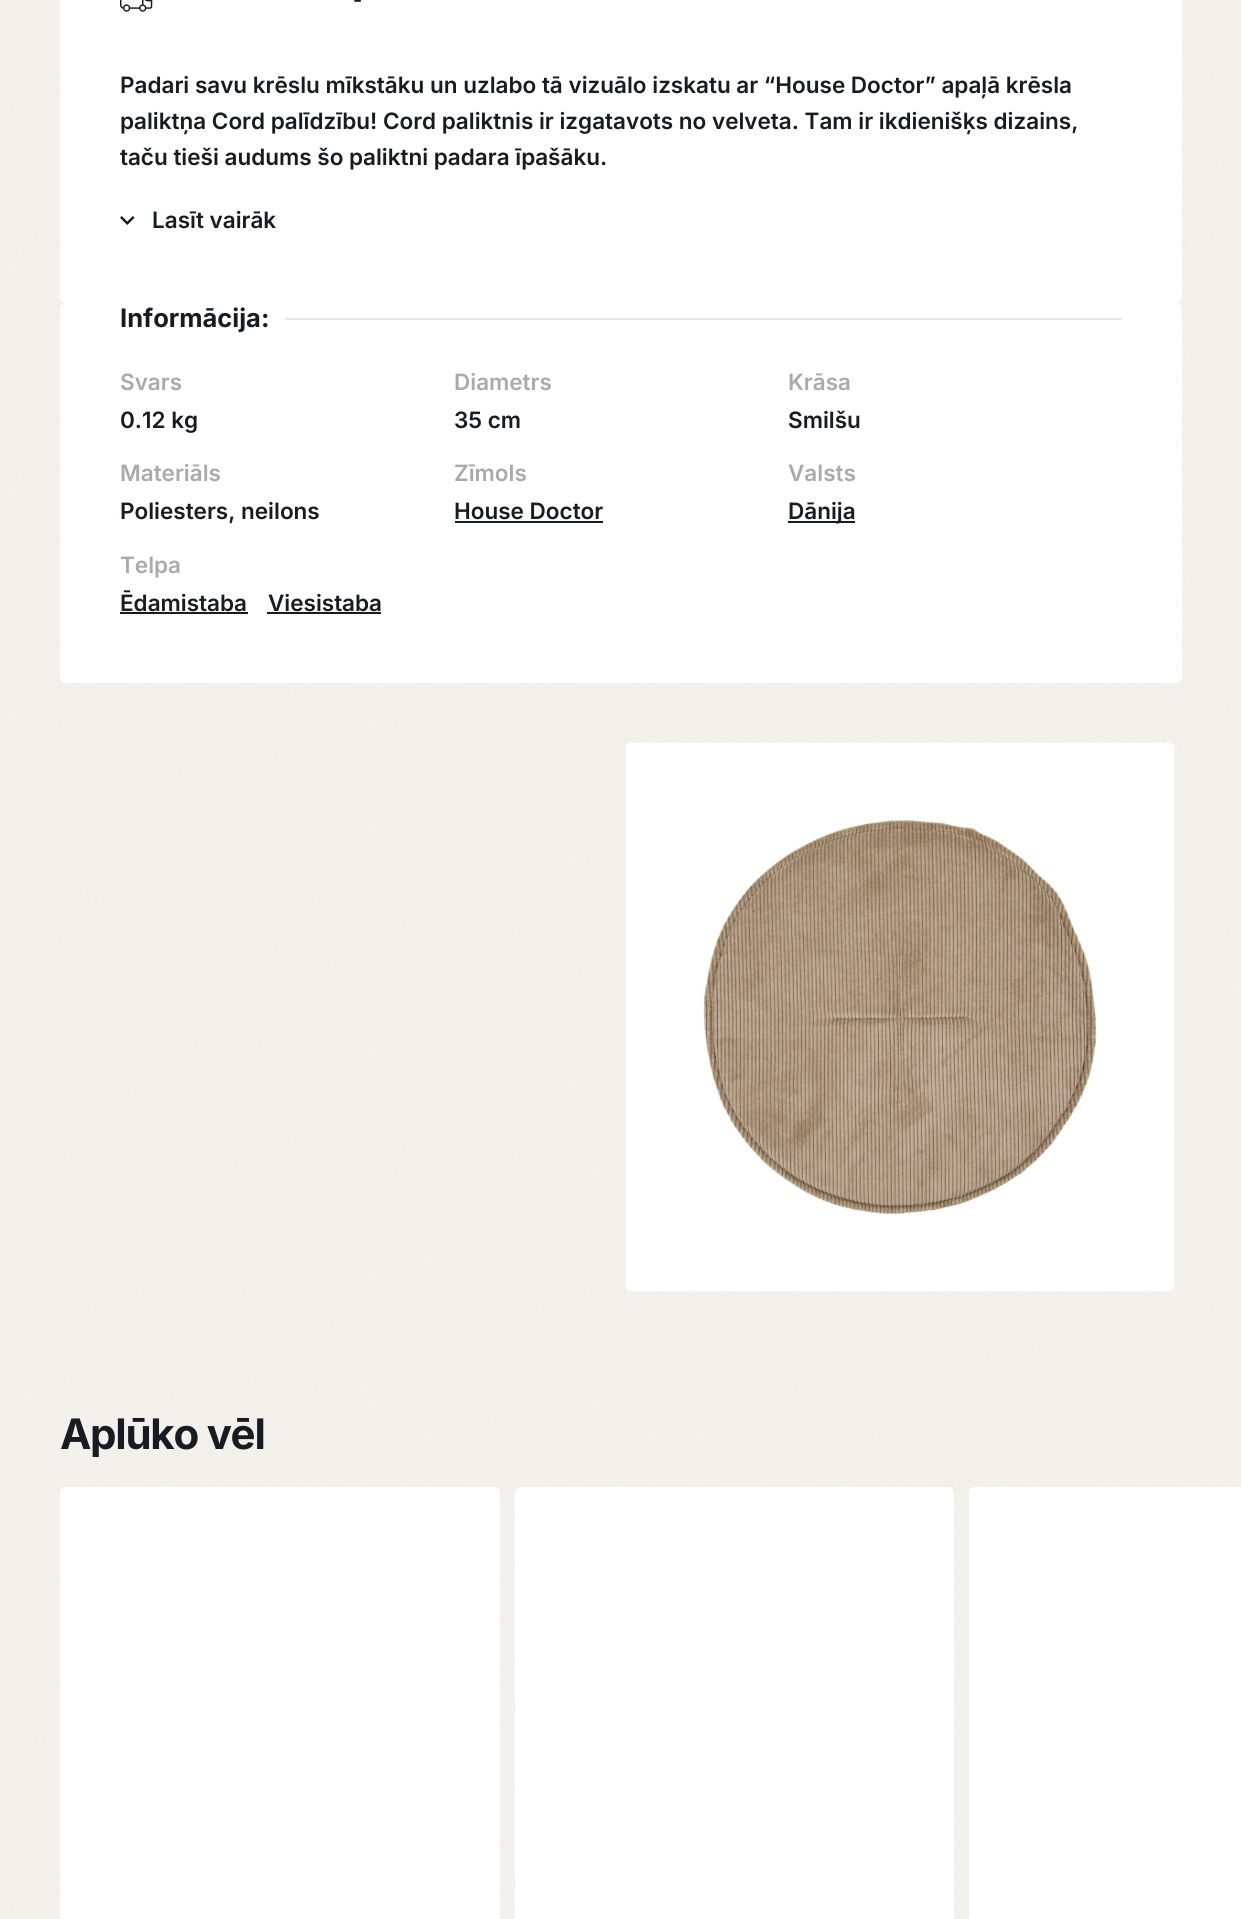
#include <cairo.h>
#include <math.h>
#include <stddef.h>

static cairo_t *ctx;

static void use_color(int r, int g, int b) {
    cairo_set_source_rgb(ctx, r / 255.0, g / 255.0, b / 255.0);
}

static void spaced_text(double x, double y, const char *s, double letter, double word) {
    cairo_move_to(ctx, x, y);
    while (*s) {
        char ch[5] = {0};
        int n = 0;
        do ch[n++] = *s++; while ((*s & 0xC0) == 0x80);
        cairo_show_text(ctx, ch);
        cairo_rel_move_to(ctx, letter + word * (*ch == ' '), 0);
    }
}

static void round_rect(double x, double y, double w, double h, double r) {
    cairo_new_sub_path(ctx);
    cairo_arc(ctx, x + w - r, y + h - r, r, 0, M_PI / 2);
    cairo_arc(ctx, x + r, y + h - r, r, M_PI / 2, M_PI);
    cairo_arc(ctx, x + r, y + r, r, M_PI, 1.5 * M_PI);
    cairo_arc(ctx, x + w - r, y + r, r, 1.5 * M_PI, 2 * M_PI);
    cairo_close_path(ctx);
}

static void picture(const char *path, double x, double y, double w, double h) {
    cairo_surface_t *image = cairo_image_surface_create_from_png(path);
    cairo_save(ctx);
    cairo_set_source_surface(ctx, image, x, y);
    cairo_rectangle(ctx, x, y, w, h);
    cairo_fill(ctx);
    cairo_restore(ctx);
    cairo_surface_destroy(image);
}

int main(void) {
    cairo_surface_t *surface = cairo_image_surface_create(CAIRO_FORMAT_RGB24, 1241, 1919);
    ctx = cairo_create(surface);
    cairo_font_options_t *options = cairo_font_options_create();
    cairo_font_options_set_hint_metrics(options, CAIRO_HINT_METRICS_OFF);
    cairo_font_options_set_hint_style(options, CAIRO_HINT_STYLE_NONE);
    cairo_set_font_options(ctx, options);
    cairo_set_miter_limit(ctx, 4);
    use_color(255, 255, 255);
    cairo_paint(ctx);
    picture("img1.png", 0, 0, 1241, 1919);
    use_color(255, 255, 255);
    round_rect(60, -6, 1122, 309, 6);
    cairo_fill(ctx);
    picture("img2.png", 120, 0, 33, 12);
    cairo_select_font_face(ctx, "Inter Medium", CAIRO_FONT_SLANT_NORMAL, CAIRO_FONT_WEIGHT_NORMAL);
    cairo_set_font_size(ctx, 20);
    use_color(24, 27, 33);
    cairo_move_to(ctx, 353, 7);
    cairo_show_text(ctx, "-");
    cairo_select_font_face(ctx, "Inter SemiBold", CAIRO_FONT_SLANT_NORMAL, CAIRO_FONT_WEIGHT_NORMAL);
    cairo_set_font_size(ctx, 22.5);
    cairo_move_to(ctx, 120, 93);
    cairo_show_text(ctx, "Padari savu krēslu mīkstāku un uzlabo tā vizuālo izskatu ar “House Doctor” apaļā krēsla");
    cairo_move_to(ctx, 120, 129);
    cairo_show_text(ctx, "paliktņa Cord palīdzību! Cord paliktnis ir izgatavots no velveta. Tam ir ikdienišķs dizains,");
    cairo_move_to(ctx, 120, 165);
    cairo_show_text(ctx, "taču tieši audums šo paliktni padara īpašāku.");
    picture("img3.png", 120, 216, 15, 9);
    cairo_move_to(ctx, 152, 228);
    cairo_show_text(ctx, "Lasīt vairāk");
    use_color(255, 255, 255);
    round_rect(60, 303, 1122, 380, 6);
    cairo_fill(ctx);
    cairo_select_font_face(ctx, "Inter", CAIRO_FONT_SLANT_NORMAL, CAIRO_FONT_WEIGHT_BOLD);
    cairo_set_font_size(ctx, 25.5);
    use_color(24, 27, 33);
    cairo_move_to(ctx, 120, 327);
    cairo_show_text(ctx, "Informācija:");
    use_color(232, 232, 233);
    cairo_rectangle(ctx, 285, 318, 837, 2);
    cairo_fill(ctx);
    cairo_select_font_face(ctx, "Inter SemiBold", CAIRO_FONT_SLANT_NORMAL, CAIRO_FONT_WEIGHT_NORMAL);
    cairo_set_font_size(ctx, 22.5);
    use_color(170, 170, 170);
    cairo_move_to(ctx, 120, 390);
    cairo_show_text(ctx, "Svars");
    use_color(24, 27, 33);
    cairo_move_to(ctx, 120, 428);
    cairo_show_text(ctx, "0.12 kg");
    use_color(170, 170, 170);
    cairo_move_to(ctx, 454, 390);
    cairo_show_text(ctx, "Diametrs");
    use_color(24, 27, 33);
    cairo_move_to(ctx, 454, 428);
    cairo_show_text(ctx, "35 cm");
    use_color(170, 170, 170);
    cairo_move_to(ctx, 788, 390);
    cairo_show_text(ctx, "Krāsa");
    use_color(24, 27, 33);
    cairo_move_to(ctx, 788, 428);
    cairo_show_text(ctx, "Smilšu");
    use_color(170, 170, 170);
    cairo_move_to(ctx, 120, 481);
    cairo_show_text(ctx, "Materiāls");
    use_color(24, 27, 33);
    cairo_move_to(ctx, 120, 519);
    cairo_show_text(ctx, "Poliesters, neilons");
    use_color(170, 170, 170);
    cairo_move_to(ctx, 454, 481);
    cairo_show_text(ctx, "Zīmols");
    use_color(24, 27, 33);
    cairo_move_to(ctx, 454, 519);
    cairo_show_text(ctx, "House Doctor");
    cairo_rectangle(ctx, 455, 521, 148, 2);
    cairo_fill(ctx);
    use_color(170, 170, 170);
    cairo_move_to(ctx, 788, 481);
    cairo_show_text(ctx, "Valsts");
    use_color(24, 27, 33);
    cairo_rectangle(ctx, 788, 521, 67, 2);
    cairo_fill(ctx);
    cairo_move_to(ctx, 788, 519);
    cairo_show_text(ctx, "Dānija");
    use_color(170, 170, 170);
    cairo_move_to(ctx, 120, 573);
    cairo_show_text(ctx, "Telpa");
    use_color(24, 27, 33);
    cairo_move_to(ctx, 120, 611);
    cairo_show_text(ctx, "Ēdamistaba");
    cairo_rectangle(ctx, 120, 612, 128, 2);
    cairo_fill(ctx);
    cairo_move_to(ctx, 268, 611);
    cairo_show_text(ctx, "Viesistaba");
    cairo_rectangle(ctx, 267, 612, 114, 2);
    cairo_fill(ctx);
    picture("img4.png", 625, 742, 550, 550);
    cairo_save(ctx);
    cairo_rectangle(ctx, 60, 1412, 1122, 45);
    cairo_clip(ctx);
    cairo_select_font_face(ctx, "Inter", CAIRO_FONT_SLANT_NORMAL, CAIRO_FONT_WEIGHT_BOLD);
    cairo_set_font_size(ctx, 42);
    spaced_text(60, 1449, "Aplūko vēl", -1.25, 0);
    cairo_restore(ctx);
    use_color(255, 255, 255);
    round_rect(60, 1487, 440, 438, 6);
    cairo_fill(ctx);
    round_rect(515, 1487, 439, 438, 6);
    cairo_fill(ctx);
    cairo_new_path(ctx);
    cairo_move_to(ctx, 975, 1487);
    cairo_line_to(ctx, 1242, 1487);
    cairo_line_to(ctx, 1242, 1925);
    cairo_line_to(ctx, 975, 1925);
    cairo_curve_to(ctx, 971.5, 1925, 969, 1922.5, 969, 1919);
    cairo_line_to(ctx, 969, 1493);
    cairo_curve_to(ctx, 969, 1489.5, 971.5, 1487, 975, 1487);
    cairo_close_path(ctx);
    cairo_fill(ctx);
    cairo_surface_write_to_png(surface, "result.png");
    cairo_font_options_destroy(options);
    cairo_destroy(ctx);
    cairo_surface_destroy(surface);
    return 0;
}
